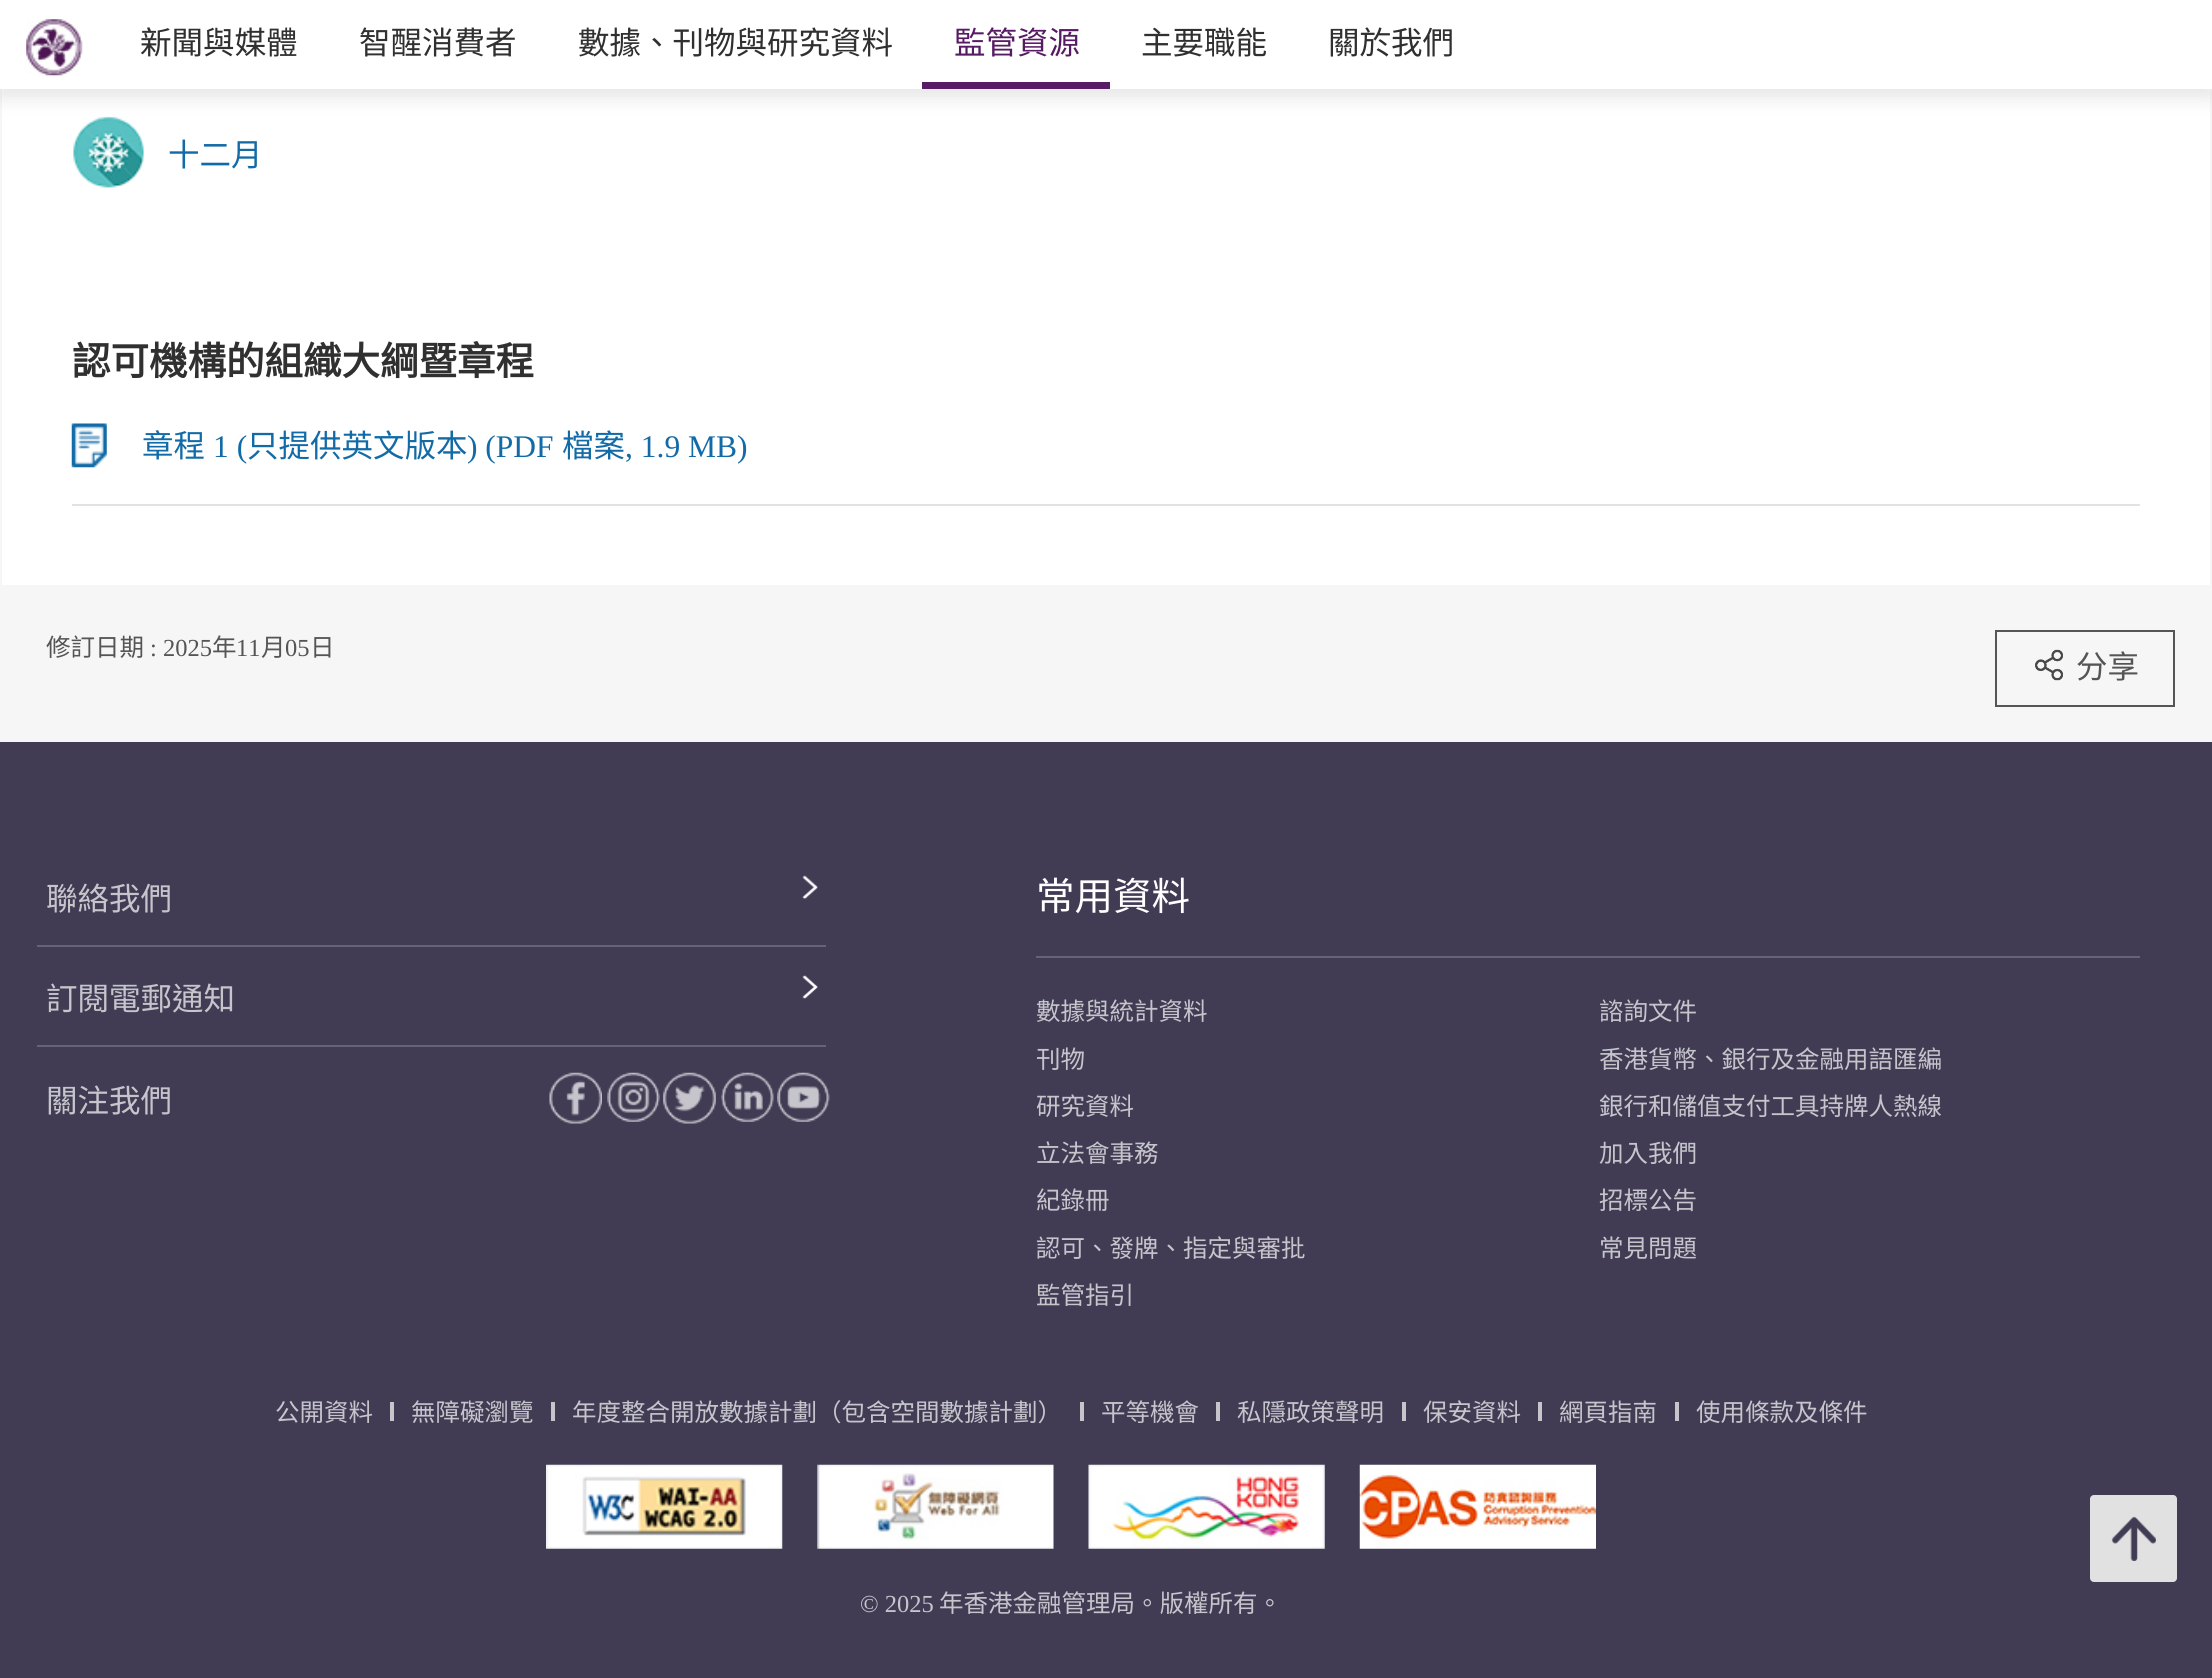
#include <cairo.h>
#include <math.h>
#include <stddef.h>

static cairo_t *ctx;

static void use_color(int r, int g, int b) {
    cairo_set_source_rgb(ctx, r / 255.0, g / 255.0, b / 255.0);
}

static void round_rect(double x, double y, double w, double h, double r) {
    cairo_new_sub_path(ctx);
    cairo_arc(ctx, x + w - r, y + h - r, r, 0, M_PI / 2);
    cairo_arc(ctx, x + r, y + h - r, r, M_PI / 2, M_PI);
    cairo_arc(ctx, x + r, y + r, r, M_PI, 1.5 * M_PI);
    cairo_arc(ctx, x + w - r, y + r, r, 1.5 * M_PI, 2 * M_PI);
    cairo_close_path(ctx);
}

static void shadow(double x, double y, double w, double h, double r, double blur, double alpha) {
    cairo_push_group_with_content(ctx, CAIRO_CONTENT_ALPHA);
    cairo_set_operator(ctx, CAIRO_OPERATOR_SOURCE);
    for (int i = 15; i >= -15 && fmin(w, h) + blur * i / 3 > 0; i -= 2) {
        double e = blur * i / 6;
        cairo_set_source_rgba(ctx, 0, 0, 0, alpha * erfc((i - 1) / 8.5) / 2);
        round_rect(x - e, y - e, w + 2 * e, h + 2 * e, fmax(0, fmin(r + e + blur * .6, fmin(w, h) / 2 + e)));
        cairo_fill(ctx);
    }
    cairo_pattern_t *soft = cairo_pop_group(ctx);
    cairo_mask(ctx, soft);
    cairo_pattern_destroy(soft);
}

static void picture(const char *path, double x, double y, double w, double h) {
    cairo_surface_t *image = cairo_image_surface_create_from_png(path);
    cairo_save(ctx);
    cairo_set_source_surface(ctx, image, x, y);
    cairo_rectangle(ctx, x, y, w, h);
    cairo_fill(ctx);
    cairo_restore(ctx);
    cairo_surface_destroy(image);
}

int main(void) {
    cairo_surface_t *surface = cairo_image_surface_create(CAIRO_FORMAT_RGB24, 2212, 1678);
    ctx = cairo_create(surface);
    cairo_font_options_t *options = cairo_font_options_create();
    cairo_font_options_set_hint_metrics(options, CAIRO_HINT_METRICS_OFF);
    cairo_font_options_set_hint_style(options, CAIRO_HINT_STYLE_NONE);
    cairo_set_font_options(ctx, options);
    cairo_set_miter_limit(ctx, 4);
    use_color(246, 246, 246);
    cairo_paint(ctx);
    use_color(255, 255, 255);
    cairo_rectangle(ctx, 2, 89, 2208, 496);
    cairo_fill(ctx);
    picture("img2.png", 73, 116, 71, 72);
    use_color(0, 0, 0);
    shadow(0, 9, 2212, 89, 0, 9, 0.1);
    use_color(255, 255, 255);
    cairo_rectangle(ctx, 0, 0, 2212, 89);
    cairo_fill(ctx);
    picture("img1.png", 26, 19, 57, 57);
    cairo_select_font_face(ctx, "Noto Sans CJK HK", CAIRO_FONT_SLANT_NORMAL, CAIRO_FONT_WEIGHT_NORMAL);
    cairo_set_font_size(ctx, 31.5);
    use_color(48, 48, 48);
    cairo_move_to(ctx, 140, 54);
    cairo_show_text(ctx, "新聞與媒體");
    cairo_move_to(ctx, 359, 54);
    cairo_show_text(ctx, "智醒消費者");
    cairo_move_to(ctx, 578, 54);
    cairo_show_text(ctx, "數據、刊物與研究資料");
    use_color(87, 26, 100);
    cairo_rectangle(ctx, 922, 82, 188, 7);
    cairo_fill(ctx);
    cairo_move_to(ctx, 954, 54);
    cairo_show_text(ctx, "監管資源");
    use_color(48, 48, 48);
    cairo_move_to(ctx, 1141, 54);
    cairo_show_text(ctx, "主要職能");
    cairo_move_to(ctx, 1328, 54);
    cairo_show_text(ctx, "關於我們");
    use_color(18, 107, 167);
    cairo_move_to(ctx, 168, 166);
    cairo_show_text(ctx, "十二月");
    cairo_select_font_face(ctx, "Noto Sans CJK HK", CAIRO_FONT_SLANT_NORMAL, CAIRO_FONT_WEIGHT_BOLD);
    cairo_set_font_size(ctx, 38.5);
    use_color(48, 48, 48);
    cairo_move_to(ctx, 72, 375);
    cairo_show_text(ctx, "認可機構的組織大綱暨章程");
    use_color(226, 226, 226);
    cairo_rectangle(ctx, 72, 504, 2068, 2);
    cairo_fill(ctx);
    picture("img3.png", 71, 423, 36, 45);
    cairo_select_font_face(ctx, "Noto Sans CJK HK", CAIRO_FONT_SLANT_NORMAL, CAIRO_FONT_WEIGHT_NORMAL);
    cairo_set_font_size(ctx, 31.5);
    use_color(18, 107, 167);
    cairo_move_to(ctx, 142, 457);
    cairo_show_text(ctx, "章程");
    cairo_select_font_face(ctx, "Liberation Serif", CAIRO_FONT_SLANT_NORMAL, CAIRO_FONT_WEIGHT_NORMAL);
    cairo_move_to(ctx, 213, 457);
    cairo_show_text(ctx, "1 (");
    cairo_select_font_face(ctx, "Noto Sans CJK HK", CAIRO_FONT_SLANT_NORMAL, CAIRO_FONT_WEIGHT_NORMAL);
    cairo_move_to(ctx, 247, 457);
    cairo_show_text(ctx, "只提供英文版本");
    cairo_select_font_face(ctx, "Liberation Serif", CAIRO_FONT_SLANT_NORMAL, CAIRO_FONT_WEIGHT_NORMAL);
    cairo_move_to(ctx, 467, 457);
    cairo_show_text(ctx, ") (PDF");
    cairo_select_font_face(ctx, "Noto Sans CJK HK", CAIRO_FONT_SLANT_NORMAL, CAIRO_FONT_WEIGHT_NORMAL);
    cairo_move_to(ctx, 562, 457);
    cairo_show_text(ctx, "檔案");
    cairo_select_font_face(ctx, "Liberation Serif", CAIRO_FONT_SLANT_NORMAL, CAIRO_FONT_WEIGHT_NORMAL);
    cairo_move_to(ctx, 625, 457);
    cairo_show_text(ctx, ", 1.9 MB)");
    cairo_select_font_face(ctx, "Noto Sans CJK HK", CAIRO_FONT_SLANT_NORMAL, CAIRO_FONT_WEIGHT_NORMAL);
    cairo_set_font_size(ctx, 24.5);
    use_color(85, 85, 85);
    cairo_move_to(ctx, 46, 656);
    cairo_show_text(ctx, "修訂日期");
    cairo_select_font_face(ctx, "Liberation Serif", CAIRO_FONT_SLANT_NORMAL, CAIRO_FONT_WEIGHT_NORMAL);
    cairo_move_to(ctx, 150, 656);
    cairo_show_text(ctx, ": 2025");
    cairo_select_font_face(ctx, "Noto Sans CJK HK", CAIRO_FONT_SLANT_NORMAL, CAIRO_FONT_WEIGHT_NORMAL);
    cairo_move_to(ctx, 212, 656);
    cairo_show_text(ctx, "年");
    cairo_select_font_face(ctx, "Liberation Serif", CAIRO_FONT_SLANT_NORMAL, CAIRO_FONT_WEIGHT_NORMAL);
    cairo_move_to(ctx, 236, 656);
    cairo_show_text(ctx, "11");
    cairo_select_font_face(ctx, "Noto Sans CJK HK", CAIRO_FONT_SLANT_NORMAL, CAIRO_FONT_WEIGHT_NORMAL);
    cairo_move_to(ctx, 261, 656);
    cairo_show_text(ctx, "月");
    cairo_select_font_face(ctx, "Liberation Serif", CAIRO_FONT_SLANT_NORMAL, CAIRO_FONT_WEIGHT_NORMAL);
    cairo_move_to(ctx, 285, 656);
    cairo_show_text(ctx, "05");
    cairo_select_font_face(ctx, "Noto Sans CJK HK", CAIRO_FONT_SLANT_NORMAL, CAIRO_FONT_WEIGHT_NORMAL);
    cairo_move_to(ctx, 310, 656);
    cairo_show_text(ctx, "日");
    cairo_rectangle(ctx, 1996, 631, 178, 75);
    cairo_stroke(ctx);
    picture("img4.png", 2035, 649, 28, 32);
    cairo_set_font_size(ctx, 31.5);
    cairo_move_to(ctx, 2076, 678);
    cairo_show_text(ctx, "分享");
    use_color(65, 60, 84);
    cairo_rectangle(ctx, 0, 742, 2212, 936);
    cairo_fill(ctx);
    use_color(103, 99, 118);
    cairo_rectangle(ctx, 37, 945, 789, 2);
    cairo_fill(ctx);
    use_color(198, 197, 204);
    cairo_move_to(ctx, 46, 910);
    cairo_show_text(ctx, "聯絡我們");
    picture("img5.png", 802, 875, 16, 24);
    use_color(103, 99, 118);
    cairo_rectangle(ctx, 37, 1045, 789, 2);
    cairo_fill(ctx);
    use_color(198, 197, 204);
    cairo_move_to(ctx, 46, 1010);
    cairo_show_text(ctx, "訂閱電郵通知");
    picture("img6.png", 802, 975, 16, 24);
    cairo_move_to(ctx, 46, 1112);
    cairo_show_text(ctx, "關注我們");
    picture("img7.png", 549, 1072, 53, 52);
    picture("img8.png", 607, 1072, 53, 50);
    picture("img9.png", 663, 1072, 53, 52);
    picture("img10.png", 721, 1072, 53, 50);
    picture("img11.png", 777, 1072, 53, 50);
    use_color(103, 99, 118);
    cairo_rectangle(ctx, 1036, 956, 1104, 2);
    cairo_fill(ctx);
    cairo_set_font_size(ctx, 38.5);
    use_color(255, 255, 255);
    cairo_move_to(ctx, 1036, 910);
    cairo_show_text(ctx, "常用資料");
    cairo_set_font_size(ctx, 24.5);
    use_color(198, 197, 204);
    cairo_move_to(ctx, 1036, 1020);
    cairo_show_text(ctx, "數據與統計資料");
    cairo_move_to(ctx, 1036, 1068);
    cairo_show_text(ctx, "刊物");
    cairo_move_to(ctx, 1036, 1115);
    cairo_show_text(ctx, "研究資料");
    cairo_move_to(ctx, 1036, 1162);
    cairo_show_text(ctx, "立法會事務");
    cairo_move_to(ctx, 1036, 1209);
    cairo_show_text(ctx, "紀錄冊");
    cairo_move_to(ctx, 1036, 1257);
    cairo_show_text(ctx, "認可、發牌、指定與審批");
    cairo_move_to(ctx, 1036, 1304);
    cairo_show_text(ctx, "監管指引");
    cairo_move_to(ctx, 1599, 1020);
    cairo_show_text(ctx, "諮詢文件");
    cairo_move_to(ctx, 1599, 1068);
    cairo_show_text(ctx, "香港貨幣、銀行及金融用語匯編");
    cairo_move_to(ctx, 1599, 1115);
    cairo_show_text(ctx, "銀行和儲值支付工具持牌人熱線");
    cairo_move_to(ctx, 1599, 1162);
    cairo_show_text(ctx, "加入我們");
    cairo_move_to(ctx, 1599, 1209);
    cairo_show_text(ctx, "招標公告");
    cairo_move_to(ctx, 1599, 1257);
    cairo_show_text(ctx, "常見問題");
    cairo_move_to(ctx, 275, 1421);
    cairo_show_text(ctx, "公開資料");
    cairo_rectangle(ctx, 390, 1402, 4, 19);
    cairo_fill(ctx);
    cairo_move_to(ctx, 411, 1421);
    cairo_show_text(ctx, "無障礙瀏覽");
    cairo_rectangle(ctx, 551, 1402, 4, 19);
    cairo_fill(ctx);
    cairo_move_to(ctx, 572, 1421);
    cairo_show_text(ctx, "年度整合開放數據計劃（包含空間數據計劃）");
    cairo_rectangle(ctx, 1080, 1402, 4, 19);
    cairo_fill(ctx);
    cairo_move_to(ctx, 1101, 1421);
    cairo_show_text(ctx, "平等機會");
    cairo_rectangle(ctx, 1216, 1402, 4, 19);
    cairo_fill(ctx);
    cairo_move_to(ctx, 1237, 1421);
    cairo_show_text(ctx, "私隱政策聲明");
    cairo_rectangle(ctx, 1402, 1402, 4, 19);
    cairo_fill(ctx);
    cairo_move_to(ctx, 1423, 1421);
    cairo_show_text(ctx, "保安資料");
    cairo_rectangle(ctx, 1538, 1402, 4, 19);
    cairo_fill(ctx);
    cairo_move_to(ctx, 1559, 1421);
    cairo_show_text(ctx, "網頁指南");
    cairo_rectangle(ctx, 1675, 1402, 4, 19);
    cairo_fill(ctx);
    cairo_move_to(ctx, 1696, 1421);
    cairo_show_text(ctx, "使用條款及條件");
    picture("img12.png", 546, 1464, 237, 85);
    picture("img13.png", 817, 1464, 237, 85);
    picture("img14.png", 1088, 1464, 237, 85);
    picture("img15.png", 1359, 1464, 237, 85);
    cairo_select_font_face(ctx, "Liberation Serif", CAIRO_FONT_SLANT_NORMAL, CAIRO_FONT_WEIGHT_NORMAL);
    cairo_move_to(ctx, 860, 1612);
    cairo_show_text(ctx, "© 2025");
    cairo_select_font_face(ctx, "Noto Sans CJK HK", CAIRO_FONT_SLANT_NORMAL, CAIRO_FONT_WEIGHT_NORMAL);
    cairo_move_to(ctx, 939, 1612);
    cairo_show_text(ctx, "年香港金融管理局。版權所有。");
    use_color(225, 225, 225);
    round_rect(2090, 1495, 87, 87, 4);
    cairo_fill(ctx);
    picture("img16.png", 2111, 1516, 45, 45);
    cairo_surface_write_to_png(surface, "result.png");
    cairo_font_options_destroy(options);
    cairo_destroy(ctx);
    cairo_surface_destroy(surface);
    return 0;
}
